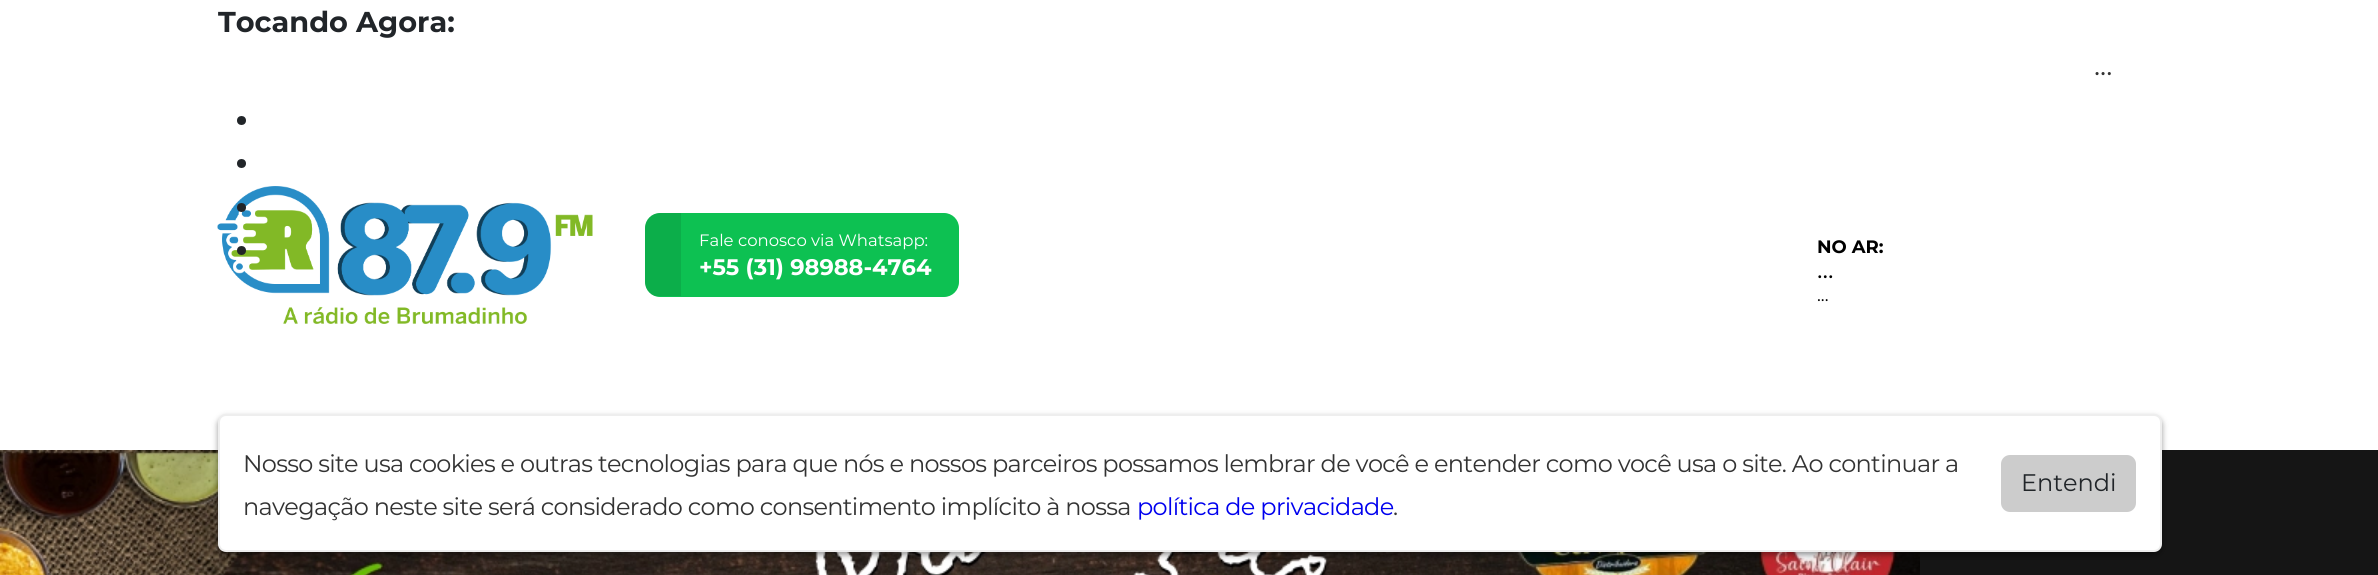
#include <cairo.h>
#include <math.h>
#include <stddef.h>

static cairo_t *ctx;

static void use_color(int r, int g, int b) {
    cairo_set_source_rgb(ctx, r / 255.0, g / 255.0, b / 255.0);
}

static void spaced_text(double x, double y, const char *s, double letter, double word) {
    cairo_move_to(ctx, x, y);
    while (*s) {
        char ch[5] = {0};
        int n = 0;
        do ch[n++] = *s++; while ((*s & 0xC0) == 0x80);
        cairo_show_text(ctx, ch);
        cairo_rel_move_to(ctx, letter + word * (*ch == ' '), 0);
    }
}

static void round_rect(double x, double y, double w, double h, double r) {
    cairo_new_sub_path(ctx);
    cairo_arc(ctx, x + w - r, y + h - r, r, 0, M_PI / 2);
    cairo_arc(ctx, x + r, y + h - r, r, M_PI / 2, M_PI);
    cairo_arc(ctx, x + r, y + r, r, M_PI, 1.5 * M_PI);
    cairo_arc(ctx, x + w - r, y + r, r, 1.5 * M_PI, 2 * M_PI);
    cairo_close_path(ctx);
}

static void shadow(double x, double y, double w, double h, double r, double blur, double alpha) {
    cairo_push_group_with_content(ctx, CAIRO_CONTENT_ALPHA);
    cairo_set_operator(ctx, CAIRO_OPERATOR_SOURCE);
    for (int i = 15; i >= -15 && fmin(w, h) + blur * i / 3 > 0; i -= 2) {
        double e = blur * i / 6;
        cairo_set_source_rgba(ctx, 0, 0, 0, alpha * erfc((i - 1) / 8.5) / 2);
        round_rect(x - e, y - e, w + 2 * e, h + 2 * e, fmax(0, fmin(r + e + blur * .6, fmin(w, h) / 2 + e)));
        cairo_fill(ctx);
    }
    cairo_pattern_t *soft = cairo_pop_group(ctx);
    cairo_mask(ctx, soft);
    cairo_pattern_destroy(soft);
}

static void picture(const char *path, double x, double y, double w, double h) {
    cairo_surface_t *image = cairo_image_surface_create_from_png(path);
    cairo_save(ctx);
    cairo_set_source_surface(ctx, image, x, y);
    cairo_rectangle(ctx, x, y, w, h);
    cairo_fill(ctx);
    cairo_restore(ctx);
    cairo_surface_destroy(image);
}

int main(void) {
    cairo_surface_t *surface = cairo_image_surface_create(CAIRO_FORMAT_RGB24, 2378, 575);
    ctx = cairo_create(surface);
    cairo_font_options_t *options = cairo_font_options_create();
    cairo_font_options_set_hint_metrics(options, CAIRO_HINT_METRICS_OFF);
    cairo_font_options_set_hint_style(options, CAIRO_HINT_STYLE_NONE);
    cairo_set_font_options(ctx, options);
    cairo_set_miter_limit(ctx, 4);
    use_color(255, 255, 255);
    cairo_paint(ctx);
    cairo_select_font_face(ctx, "Montserrat", CAIRO_FONT_SLANT_NORMAL, CAIRO_FONT_WEIGHT_BOLD);
    cairo_set_font_size(ctx, 28.75);
    use_color(33, 37, 41);
    cairo_move_to(ctx, 218, 32);
    cairo_show_text(ctx, "Tocando Agora:");
    cairo_select_font_face(ctx, "Montserrat", CAIRO_FONT_SLANT_NORMAL, CAIRO_FONT_WEIGHT_NORMAL);
    use_color(51, 51, 51);
    cairo_move_to(ctx, 2094, 75);
    cairo_show_text(ctx, "...");
    use_color(33, 37, 41);
    cairo_new_path(ctx);
    cairo_arc(ctx, 241.5, 120.5, 4.5, 0, 2 * M_PI);
    cairo_fill(ctx);
    cairo_arc(ctx, 241.5, 163.5, 4.5, 0, 2 * M_PI);
    cairo_fill(ctx);
    picture("img1.png", 217, 186, 376, 138);
    cairo_arc(ctx, 241.5, 207.5, 4.5, 0, 2 * M_PI);
    cairo_fill(ctx);
    cairo_arc(ctx, 241.5, 250.5, 4.5, 0, 2 * M_PI);
    cairo_fill(ctx);
    use_color(13, 193, 82);
    round_rect(645, 213, 314, 84, 15);
    cairo_fill(ctx);
    cairo_save(ctx);
    round_rect(645, 213, 314, 84, 15);
    cairo_clip(ctx);
    cairo_set_source_rgba(ctx, 0, 0, 0, 0.1);
    cairo_new_path(ctx);
    cairo_move_to(ctx, 660, 213);
    cairo_line_to(ctx, 681, 213);
    cairo_line_to(ctx, 681, 296);
    cairo_line_to(ctx, 645, 296);
    cairo_line_to(ctx, 645, 228);
    cairo_curve_to(ctx, 645, 219.5, 651.5, 213, 660, 213);
    cairo_close_path(ctx);
    cairo_fill(ctx);
    cairo_restore(ctx);
    cairo_set_font_size(ctx, 16.5);
    use_color(255, 255, 255);
    cairo_move_to(ctx, 699, 246);
    cairo_show_text(ctx, "Fale conosco via Whatsapp:");
    cairo_select_font_face(ctx, "Montserrat", CAIRO_FONT_SLANT_NORMAL, CAIRO_FONT_WEIGHT_BOLD);
    cairo_set_font_size(ctx, 22.5);
    cairo_move_to(ctx, 699, 275);
    cairo_show_text(ctx, "+55 (31) 98988-4764");
    cairo_set_font_size(ctx, 18);
    use_color(0, 0, 0);
    cairo_move_to(ctx, 1817, 253);
    cairo_show_text(ctx, "NO AR:");
    cairo_select_font_face(ctx, "Montserrat", CAIRO_FONT_SLANT_NORMAL, CAIRO_FONT_WEIGHT_NORMAL);
    cairo_set_font_size(ctx, 26);
    cairo_move_to(ctx, 1817, 278);
    cairo_show_text(ctx, "...");
    cairo_set_font_size(ctx, 18);
    cairo_move_to(ctx, 1817, 301);
    cairo_show_text(ctx, "...");
    use_color(21, 21, 21);
    cairo_rectangle(ctx, 1920, 450, 458, 125);
    cairo_fill(ctx);
    picture("img2.png", 0, 450, 1920, 125);
    use_color(0, 0, 0);
    shadow(218, 417, 1944, 138, 8, 3, 0.4);
    use_color(255, 255, 255);
    round_rect(219, 415, 1942, 136, 7);
    cairo_fill_preserve(ctx);
    use_color(238, 238, 238);
    cairo_stroke(ctx);
    cairo_set_font_size(ctx, 24);
    use_color(51, 51, 51);
    spaced_text(243, 472, "Nosso site usa cookies e outras tecnologias para que nós e nossos parceiros possamos lembrar de você e entender como você usa o site. Ao continuar a", -0.68, 0);
    spaced_text(243, 515, "navegação neste site será considerado como consentimento implícito à nossa", -0.68, 0);
    use_color(0, 0, 238);
    spaced_text(1137, 515, "política de privacidade", -0.68, 0);
    use_color(51, 51, 51);
    spaced_text(1393, 515, ".", -0.68, 0);
    use_color(204, 204, 204);
    round_rect(2001, 455, 135, 57, 9);
    cairo_fill(ctx);
    use_color(33, 37, 41);
    cairo_move_to(ctx, 2021, 491);
    cairo_show_text(ctx, "Entendi");
    cairo_surface_write_to_png(surface, "result.png");
    cairo_font_options_destroy(options);
    cairo_destroy(ctx);
    cairo_surface_destroy(surface);
    return 0;
}
